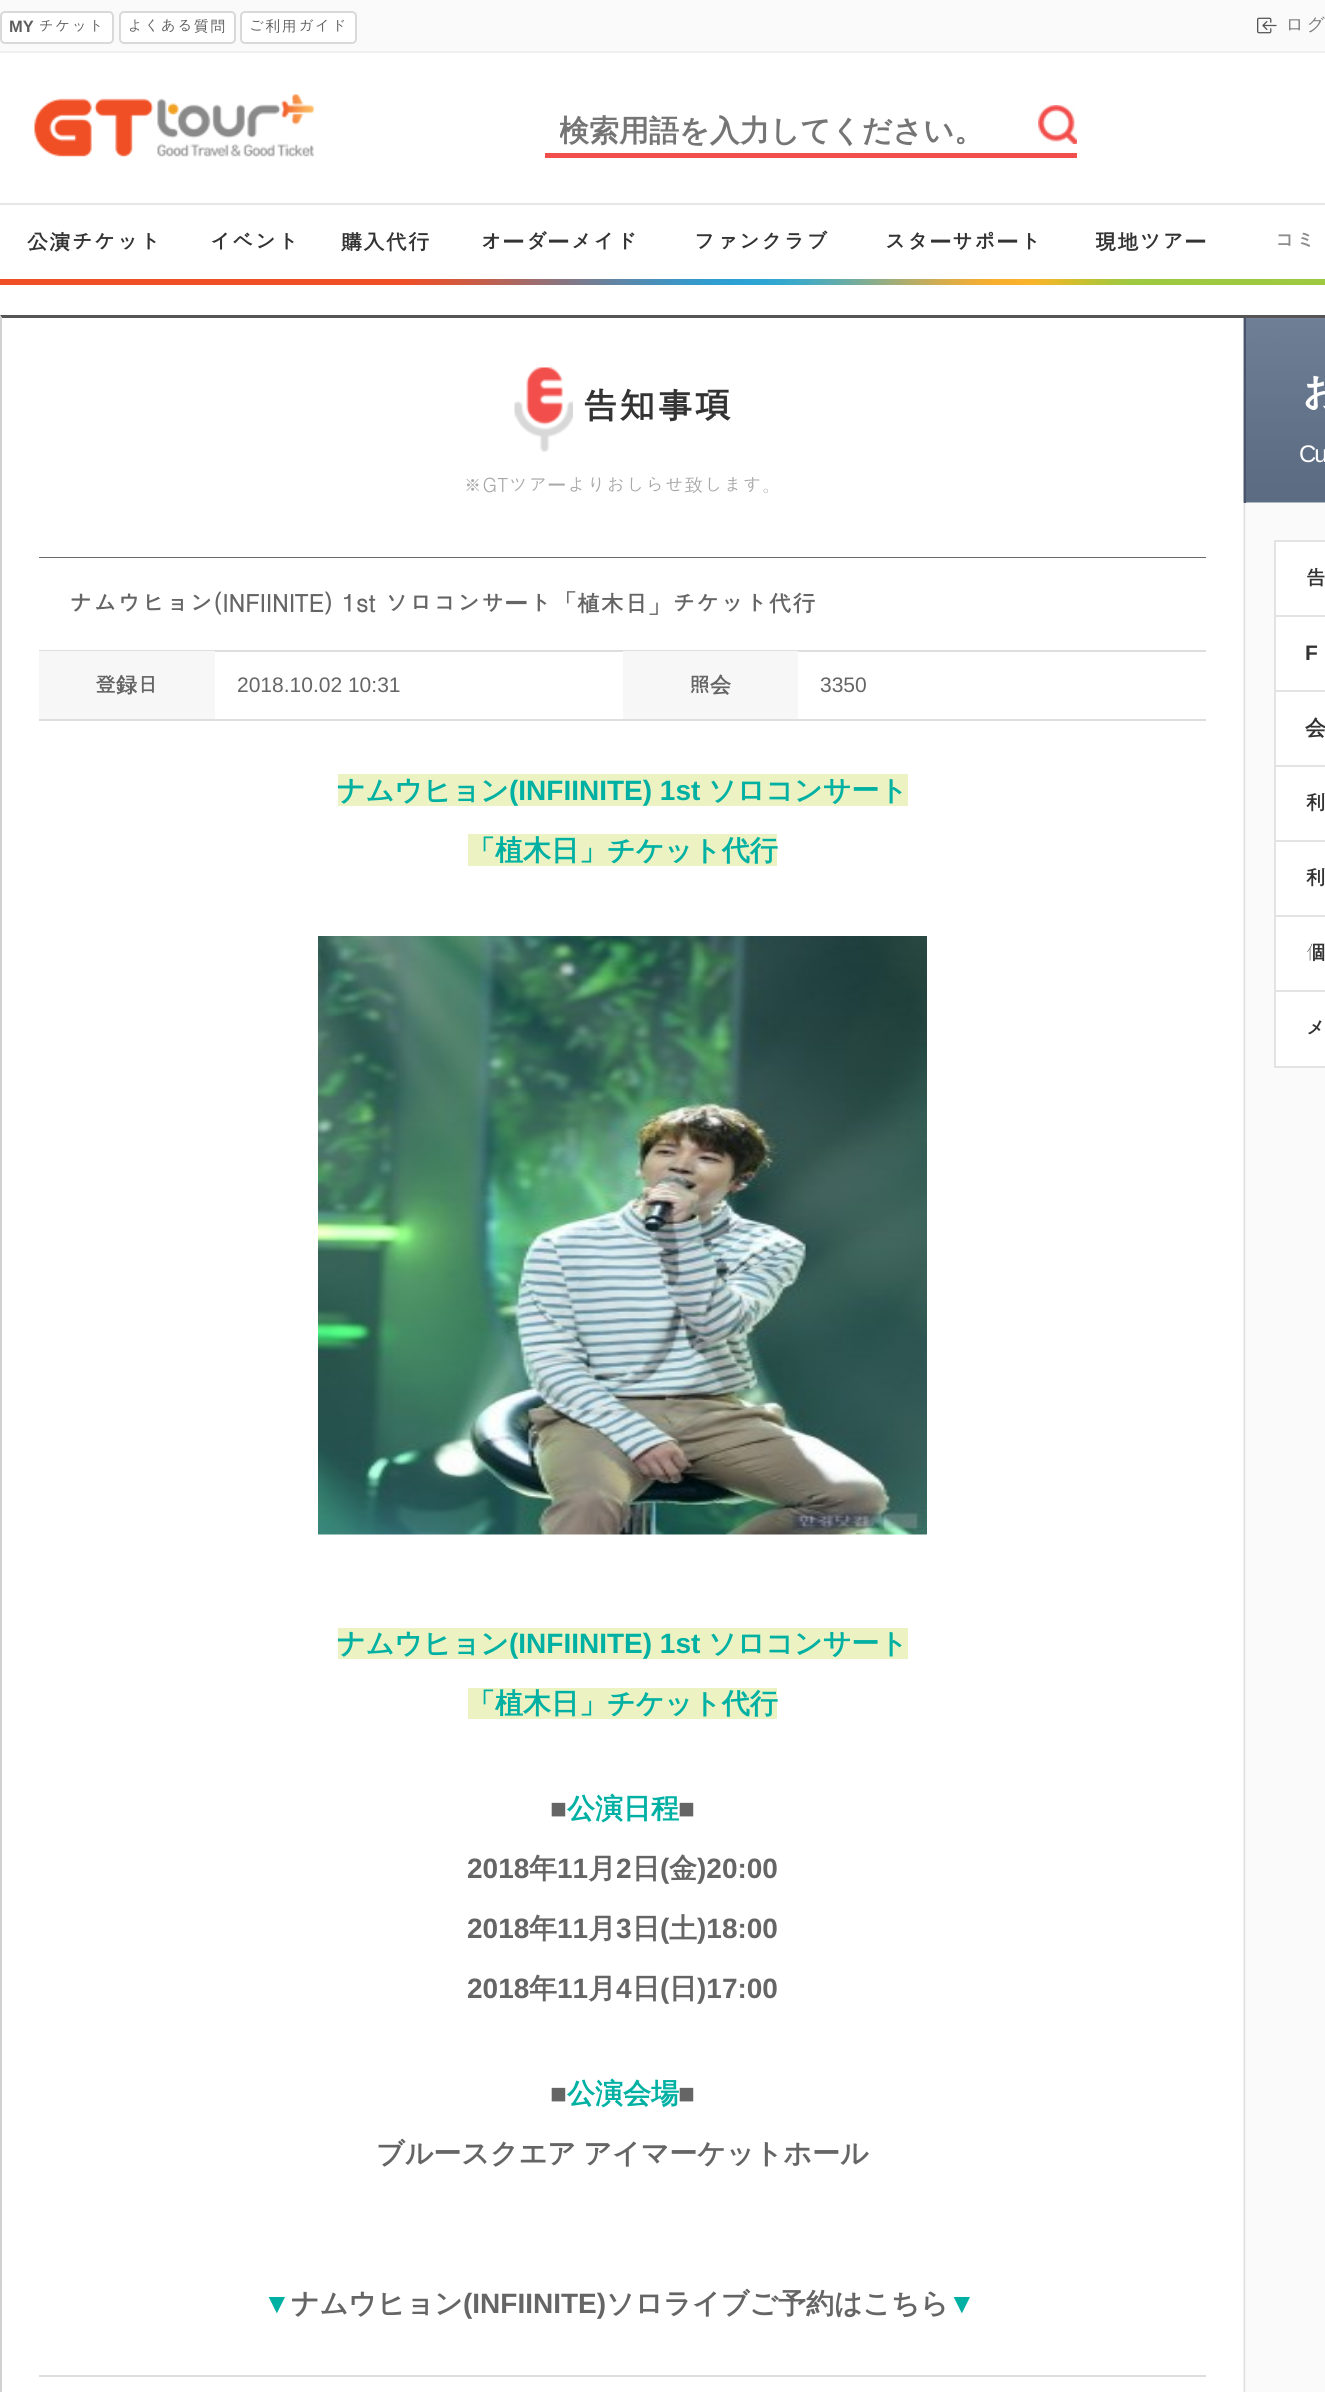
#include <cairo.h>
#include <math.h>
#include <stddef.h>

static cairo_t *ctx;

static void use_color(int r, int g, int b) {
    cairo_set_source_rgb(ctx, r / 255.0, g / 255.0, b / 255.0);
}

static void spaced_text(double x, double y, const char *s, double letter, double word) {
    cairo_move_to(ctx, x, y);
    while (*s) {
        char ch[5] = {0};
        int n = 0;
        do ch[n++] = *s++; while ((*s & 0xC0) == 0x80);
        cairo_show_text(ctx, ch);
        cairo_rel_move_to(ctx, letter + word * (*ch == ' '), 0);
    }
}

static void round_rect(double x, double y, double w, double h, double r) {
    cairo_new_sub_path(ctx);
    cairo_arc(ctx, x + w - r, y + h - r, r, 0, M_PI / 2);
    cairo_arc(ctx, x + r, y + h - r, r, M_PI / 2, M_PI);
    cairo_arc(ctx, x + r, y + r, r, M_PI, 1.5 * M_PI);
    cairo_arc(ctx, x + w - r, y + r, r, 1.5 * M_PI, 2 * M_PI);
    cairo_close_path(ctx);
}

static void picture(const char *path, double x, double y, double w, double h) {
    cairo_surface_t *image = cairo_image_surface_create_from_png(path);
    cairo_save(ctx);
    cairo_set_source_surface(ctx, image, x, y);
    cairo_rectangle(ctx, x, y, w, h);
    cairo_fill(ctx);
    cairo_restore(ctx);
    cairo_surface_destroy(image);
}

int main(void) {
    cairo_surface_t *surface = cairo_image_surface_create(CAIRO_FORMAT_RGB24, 1325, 2392);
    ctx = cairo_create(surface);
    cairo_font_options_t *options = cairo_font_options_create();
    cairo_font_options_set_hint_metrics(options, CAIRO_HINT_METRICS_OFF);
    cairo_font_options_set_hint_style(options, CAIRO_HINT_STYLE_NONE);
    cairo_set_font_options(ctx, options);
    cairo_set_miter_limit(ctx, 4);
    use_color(255, 255, 255);
    cairo_paint(ctx);
    use_color(250, 250, 250);
    cairo_rectangle(ctx, 0, 0, 1325, 51);
    cairo_fill(ctx);
    use_color(240, 240, 240);
    cairo_rectangle(ctx, 0, 51, 1325, 2);
    cairo_fill(ctx);
    use_color(255, 255, 255);
    round_rect(1, 12, 112, 31, 4);
    cairo_fill_preserve(ctx);
    use_color(217, 217, 217);
    cairo_stroke(ctx);
    cairo_select_font_face(ctx, "Liberation Sans", CAIRO_FONT_SLANT_NORMAL, CAIRO_FONT_WEIGHT_BOLD);
    cairo_set_font_size(ctx, 16.5);
    use_color(94, 94, 94);
    cairo_move_to(ctx, 9, 32);
    cairo_show_text(ctx, "MY");
    cairo_select_font_face(ctx, "Dotum", CAIRO_FONT_SLANT_NORMAL, CAIRO_FONT_WEIGHT_NORMAL);
    cairo_move_to(ctx, 38, 32);
    cairo_show_text(ctx, "チケット");
    use_color(255, 255, 255);
    round_rect(120, 12, 115, 31, 4);
    cairo_fill_preserve(ctx);
    use_color(217, 217, 217);
    cairo_stroke(ctx);
    use_color(94, 94, 94);
    cairo_move_to(ctx, 127, 32);
    cairo_show_text(ctx, "よくある質問");
    use_color(255, 255, 255);
    round_rect(241, 12, 115, 31, 4);
    cairo_fill_preserve(ctx);
    use_color(217, 217, 217);
    cairo_stroke(ctx);
    use_color(94, 94, 94);
    cairo_move_to(ctx, 248, 32);
    cairo_show_text(ctx, "ご利用ガイド");
    picture("img1.png", 1257, 17, 20, 17);
    cairo_set_font_size(ctx, 21);
    use_color(124, 124, 124);
    cairo_move_to(ctx, 1284, 33);
    cairo_show_text(ctx, "ログ");
    use_color(231, 231, 231);
    cairo_rectangle(ctx, 0, 203, 1325, 2);
    cairo_fill(ctx);
    picture("img2.png", 34, 94, 280, 63);
    use_color(242, 78, 76);
    cairo_rectangle(ctx, 545, 153, 532, 5);
    cairo_fill(ctx);
    cairo_save(ctx);
    cairo_rectangle(ctx, 560, 111, 465, 41);
    cairo_clip(ctx);
    cairo_select_font_face(ctx, "WenQuanYi Zen Hei", CAIRO_FONT_SLANT_NORMAL, CAIRO_FONT_WEIGHT_BOLD);
    cairo_set_font_size(ctx, 30);
    use_color(117, 117, 117);
    cairo_move_to(ctx, 559, 141);
    cairo_show_text(ctx, "検索用語を入力してください。");
    cairo_restore(ctx);
    picture("img3.png", 1038, 105, 39, 39);
    cairo_select_font_face(ctx, "Dotum", CAIRO_FONT_SLANT_NORMAL, CAIRO_FONT_WEIGHT_BOLD);
    cairo_set_font_size(ctx, 22.5);
    use_color(51, 51, 51);
    cairo_move_to(ctx, 26, 250);
    cairo_show_text(ctx, "公演チケット");
    cairo_move_to(ctx, 209, 250);
    cairo_show_text(ctx, "イベント");
    cairo_move_to(ctx, 340, 250);
    cairo_show_text(ctx, "購入代行");
    cairo_move_to(ctx, 480, 250);
    cairo_show_text(ctx, "オ");
    cairo_select_font_face(ctx, "WenQuanYi Zen Hei", CAIRO_FONT_SLANT_NORMAL, CAIRO_FONT_WEIGHT_BOLD);
    cairo_move_to(ctx, 502, 250);
    cairo_show_text(ctx, "ー");
    cairo_select_font_face(ctx, "Dotum", CAIRO_FONT_SLANT_NORMAL, CAIRO_FONT_WEIGHT_BOLD);
    cairo_move_to(ctx, 525, 250);
    cairo_show_text(ctx, "ダ");
    cairo_select_font_face(ctx, "WenQuanYi Zen Hei", CAIRO_FONT_SLANT_NORMAL, CAIRO_FONT_WEIGHT_BOLD);
    cairo_move_to(ctx, 547, 250);
    cairo_show_text(ctx, "ー");
    cairo_select_font_face(ctx, "Dotum", CAIRO_FONT_SLANT_NORMAL, CAIRO_FONT_WEIGHT_BOLD);
    cairo_move_to(ctx, 570, 250);
    cairo_show_text(ctx, "メイド");
    cairo_move_to(ctx, 693, 250);
    cairo_show_text(ctx, "ファンクラブ");
    cairo_move_to(ctx, 884, 250);
    cairo_show_text(ctx, "スタ");
    cairo_select_font_face(ctx, "WenQuanYi Zen Hei", CAIRO_FONT_SLANT_NORMAL, CAIRO_FONT_WEIGHT_BOLD);
    cairo_move_to(ctx, 929, 250);
    cairo_show_text(ctx, "ー");
    cairo_select_font_face(ctx, "Dotum", CAIRO_FONT_SLANT_NORMAL, CAIRO_FONT_WEIGHT_BOLD);
    cairo_move_to(ctx, 951, 250);
    cairo_show_text(ctx, "サポ");
    cairo_select_font_face(ctx, "WenQuanYi Zen Hei", CAIRO_FONT_SLANT_NORMAL, CAIRO_FONT_WEIGHT_BOLD);
    cairo_move_to(ctx, 996, 250);
    cairo_show_text(ctx, "ー");
    cairo_select_font_face(ctx, "Dotum", CAIRO_FONT_SLANT_NORMAL, CAIRO_FONT_WEIGHT_BOLD);
    cairo_move_to(ctx, 1019, 250);
    cairo_show_text(ctx, "ト");
    cairo_move_to(ctx, 1094, 250);
    cairo_show_text(ctx, "現地ツア");
    cairo_select_font_face(ctx, "WenQuanYi Zen Hei", CAIRO_FONT_SLANT_NORMAL, CAIRO_FONT_WEIGHT_BOLD);
    cairo_move_to(ctx, 1184, 250);
    cairo_show_text(ctx, "ー");
    cairo_select_font_face(ctx, "Dotum", CAIRO_FONT_SLANT_NORMAL, CAIRO_FONT_WEIGHT_BOLD);
    cairo_set_font_size(ctx, 21);
    use_color(141, 141, 141);
    cairo_move_to(ctx, 1274, 248);
    cairo_show_text(ctx, "コミ");
    picture("img4.png", 0, 279, 1325, 6);
    picture("img5.png", 0, 315, 1325, 2077);
    use_color(85, 85, 85);
    cairo_new_path(ctx);
    cairo_move_to(ctx, 0, 315);
    cairo_line_to(ctx, 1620, 315);
    cairo_line_to(ctx, 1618, 318);
    cairo_line_to(ctx, 2, 318);
    cairo_close_path(ctx);
    cairo_fill(ctx);
    use_color(210, 210, 210);
    cairo_new_path(ctx);
    cairo_move_to(ctx, 0, 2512);
    cairo_line_to(ctx, 0, 315);
    cairo_line_to(ctx, 2, 318);
    cairo_line_to(ctx, 2, 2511);
    cairo_close_path(ctx);
    cairo_fill(ctx);
    picture("img6.png", 514, 367, 59, 85);
    cairo_set_font_size(ctx, 37.5);
    use_color(51, 51, 51);
    cairo_move_to(ctx, 581, 419);
    cairo_show_text(ctx, "告知事項");
    cairo_select_font_face(ctx, "Dotum", CAIRO_FONT_SLANT_NORMAL, CAIRO_FONT_WEIGHT_NORMAL);
    cairo_set_font_size(ctx, 19.5);
    use_color(168, 168, 168);
    cairo_move_to(ctx, 463, 492);
    cairo_show_text(ctx, "※GTツア");
    cairo_select_font_face(ctx, "WenQuanYi Zen Hei Medium", CAIRO_FONT_SLANT_NORMAL, CAIRO_FONT_WEIGHT_NORMAL);
    cairo_move_to(ctx, 547, 492);
    cairo_show_text(ctx, "ー");
    cairo_select_font_face(ctx, "Dotum", CAIRO_FONT_SLANT_NORMAL, CAIRO_FONT_WEIGHT_NORMAL);
    cairo_move_to(ctx, 567, 492);
    cairo_show_text(ctx, "よりおしらせ致します。");
    use_color(107, 107, 107);
    cairo_rectangle(ctx, 39, 557, 1167, 1);
    cairo_fill(ctx);
    use_color(222, 222, 222);
    cairo_rectangle(ctx, 39, 650, 1167, 2);
    cairo_fill(ctx);
    cairo_select_font_face(ctx, "Dotum", CAIRO_FONT_SLANT_NORMAL, CAIRO_FONT_WEIGHT_BOLD);
    cairo_set_font_size(ctx, 24);
    use_color(101, 101, 101);
    spaced_text(69, 612, "ナムウヒョン(INFIINITE) 1st ソロコンサ", 0, 1);
    cairo_select_font_face(ctx, "WenQuanYi Zen Hei", CAIRO_FONT_SLANT_NORMAL, CAIRO_FONT_WEIGHT_BOLD);
    cairo_move_to(ctx, 504, 612);
    cairo_show_text(ctx, "ー");
    cairo_select_font_face(ctx, "Dotum", CAIRO_FONT_SLANT_NORMAL, CAIRO_FONT_WEIGHT_BOLD);
    cairo_move_to(ctx, 528, 612);
    cairo_show_text(ctx, "ト「植木日」チケット代行");
    use_color(247, 247, 247);
    cairo_rectangle(ctx, 39, 651, 176, 68);
    cairo_fill(ctx);
    use_color(222, 222, 222);
    cairo_rectangle(ctx, 39, 719, 1167, 2);
    cairo_fill(ctx);
    cairo_set_font_size(ctx, 21);
    use_color(101, 101, 101);
    cairo_move_to(ctx, 95, 692);
    cairo_show_text(ctx, "登");
    cairo_select_font_face(ctx, "WenQuanYi Zen Hei", CAIRO_FONT_SLANT_NORMAL, CAIRO_FONT_WEIGHT_BOLD);
    cairo_move_to(ctx, 116, 692);
    cairo_show_text(ctx, "録");
    cairo_select_font_face(ctx, "Dotum", CAIRO_FONT_SLANT_NORMAL, CAIRO_FONT_WEIGHT_BOLD);
    cairo_move_to(ctx, 137, 692);
    cairo_show_text(ctx, "日");
    cairo_select_font_face(ctx, "Liberation Sans", CAIRO_FONT_SLANT_NORMAL, CAIRO_FONT_WEIGHT_NORMAL);
    cairo_move_to(ctx, 237, 692);
    cairo_show_text(ctx, "2018.10.02 10:31");
    use_color(247, 247, 247);
    cairo_rectangle(ctx, 623, 651, 175, 68);
    cairo_fill(ctx);
    cairo_select_font_face(ctx, "Dotum", CAIRO_FONT_SLANT_NORMAL, CAIRO_FONT_WEIGHT_BOLD);
    use_color(101, 101, 101);
    cairo_move_to(ctx, 689, 692);
    cairo_show_text(ctx, "照");
    cairo_select_font_face(ctx, "WenQuanYi Zen Hei", CAIRO_FONT_SLANT_NORMAL, CAIRO_FONT_WEIGHT_BOLD);
    cairo_move_to(ctx, 710, 692);
    cairo_show_text(ctx, "会");
    cairo_select_font_face(ctx, "Liberation Sans", CAIRO_FONT_SLANT_NORMAL, CAIRO_FONT_WEIGHT_NORMAL);
    cairo_move_to(ctx, 820, 692);
    cairo_show_text(ctx, "3350");
    use_color(222, 222, 222);
    cairo_rectangle(ctx, 39, 2375, 1167, 2);
    cairo_fill(ctx);
    use_color(237, 242, 194);
    cairo_rectangle(ctx, 338, 774, 570, 32);
    cairo_fill(ctx);
    cairo_select_font_face(ctx, "WenQuanYi Zen Hei", CAIRO_FONT_SLANT_NORMAL, CAIRO_FONT_WEIGHT_BOLD);
    cairo_set_font_size(ctx, 28);
    use_color(0, 176, 162);
    cairo_move_to(ctx, 337, 800);
    cairo_show_text(ctx, "ナムウヒョン");
    cairo_select_font_face(ctx, "Liberation Sans", CAIRO_FONT_SLANT_NORMAL, CAIRO_FONT_WEIGHT_BOLD);
    cairo_move_to(ctx, 509, 800);
    cairo_show_text(ctx, "(INFIINITE) 1st");
    cairo_select_font_face(ctx, "WenQuanYi Zen Hei", CAIRO_FONT_SLANT_NORMAL, CAIRO_FONT_WEIGHT_BOLD);
    cairo_move_to(ctx, 708, 800);
    cairo_show_text(ctx, "ソロコンサート");
    use_color(237, 242, 194);
    cairo_rectangle(ctx, 468, 834, 309, 32);
    cairo_fill(ctx);
    use_color(0, 176, 162);
    cairo_move_to(ctx, 467, 860);
    cairo_show_text(ctx, "「植木日」チケット代行");
    picture("img7.png", 318, 936, 609, 599);
    use_color(237, 242, 194);
    cairo_rectangle(ctx, 338, 1628, 570, 31);
    cairo_fill(ctx);
    use_color(0, 176, 162);
    cairo_move_to(ctx, 337, 1653);
    cairo_show_text(ctx, "ナムウヒョン");
    cairo_select_font_face(ctx, "Liberation Sans", CAIRO_FONT_SLANT_NORMAL, CAIRO_FONT_WEIGHT_BOLD);
    cairo_move_to(ctx, 509, 1653);
    cairo_show_text(ctx, "(INFIINITE) 1st");
    cairo_select_font_face(ctx, "WenQuanYi Zen Hei", CAIRO_FONT_SLANT_NORMAL, CAIRO_FONT_WEIGHT_BOLD);
    cairo_move_to(ctx, 708, 1653);
    cairo_show_text(ctx, "ソロコンサート");
    use_color(237, 242, 194);
    cairo_rectangle(ctx, 468, 1688, 309, 31);
    cairo_fill(ctx);
    use_color(0, 176, 162);
    cairo_move_to(ctx, 467, 1713);
    cairo_show_text(ctx, "「植木日」チケット代行");
    cairo_select_font_face(ctx, "Liberation Sans", CAIRO_FONT_SLANT_NORMAL, CAIRO_FONT_WEIGHT_BOLD);
    use_color(101, 101, 101);
    cairo_move_to(ctx, 550, 1818);
    cairo_show_text(ctx, "■");
    cairo_select_font_face(ctx, "WenQuanYi Zen Hei", CAIRO_FONT_SLANT_NORMAL, CAIRO_FONT_WEIGHT_BOLD);
    use_color(0, 176, 162);
    cairo_move_to(ctx, 567, 1818);
    cairo_show_text(ctx, "公演日程");
    cairo_select_font_face(ctx, "Liberation Sans", CAIRO_FONT_SLANT_NORMAL, CAIRO_FONT_WEIGHT_BOLD);
    use_color(101, 101, 101);
    cairo_move_to(ctx, 678, 1818);
    cairo_show_text(ctx, "■");
    cairo_move_to(ctx, 467, 1878);
    cairo_show_text(ctx, "2018");
    cairo_select_font_face(ctx, "WenQuanYi Zen Hei", CAIRO_FONT_SLANT_NORMAL, CAIRO_FONT_WEIGHT_BOLD);
    cairo_move_to(ctx, 529, 1878);
    cairo_show_text(ctx, "年");
    cairo_select_font_face(ctx, "Liberation Sans", CAIRO_FONT_SLANT_NORMAL, CAIRO_FONT_WEIGHT_BOLD);
    cairo_move_to(ctx, 557, 1878);
    cairo_show_text(ctx, "11");
    cairo_select_font_face(ctx, "WenQuanYi Zen Hei", CAIRO_FONT_SLANT_NORMAL, CAIRO_FONT_WEIGHT_BOLD);
    cairo_move_to(ctx, 588, 1878);
    cairo_show_text(ctx, "月");
    cairo_select_font_face(ctx, "Liberation Sans", CAIRO_FONT_SLANT_NORMAL, CAIRO_FONT_WEIGHT_BOLD);
    cairo_move_to(ctx, 616, 1878);
    cairo_show_text(ctx, "2");
    cairo_select_font_face(ctx, "WenQuanYi Zen Hei", CAIRO_FONT_SLANT_NORMAL, CAIRO_FONT_WEIGHT_BOLD);
    cairo_move_to(ctx, 632, 1878);
    cairo_show_text(ctx, "日");
    cairo_select_font_face(ctx, "Liberation Sans", CAIRO_FONT_SLANT_NORMAL, CAIRO_FONT_WEIGHT_BOLD);
    cairo_move_to(ctx, 660, 1878);
    cairo_show_text(ctx, "(");
    cairo_select_font_face(ctx, "WenQuanYi Zen Hei", CAIRO_FONT_SLANT_NORMAL, CAIRO_FONT_WEIGHT_BOLD);
    cairo_move_to(ctx, 669, 1878);
    cairo_show_text(ctx, "金");
    cairo_select_font_face(ctx, "Liberation Sans", CAIRO_FONT_SLANT_NORMAL, CAIRO_FONT_WEIGHT_BOLD);
    cairo_move_to(ctx, 697, 1878);
    cairo_show_text(ctx, ")20:00");
    cairo_move_to(ctx, 467, 1938);
    cairo_show_text(ctx, "2018");
    cairo_select_font_face(ctx, "WenQuanYi Zen Hei", CAIRO_FONT_SLANT_NORMAL, CAIRO_FONT_WEIGHT_BOLD);
    cairo_move_to(ctx, 529, 1938);
    cairo_show_text(ctx, "年");
    cairo_select_font_face(ctx, "Liberation Sans", CAIRO_FONT_SLANT_NORMAL, CAIRO_FONT_WEIGHT_BOLD);
    cairo_move_to(ctx, 557, 1938);
    cairo_show_text(ctx, "11");
    cairo_select_font_face(ctx, "WenQuanYi Zen Hei", CAIRO_FONT_SLANT_NORMAL, CAIRO_FONT_WEIGHT_BOLD);
    cairo_move_to(ctx, 588, 1938);
    cairo_show_text(ctx, "月");
    cairo_select_font_face(ctx, "Liberation Sans", CAIRO_FONT_SLANT_NORMAL, CAIRO_FONT_WEIGHT_BOLD);
    cairo_move_to(ctx, 616, 1938);
    cairo_show_text(ctx, "3");
    cairo_select_font_face(ctx, "WenQuanYi Zen Hei", CAIRO_FONT_SLANT_NORMAL, CAIRO_FONT_WEIGHT_BOLD);
    cairo_move_to(ctx, 632, 1938);
    cairo_show_text(ctx, "日");
    cairo_select_font_face(ctx, "Liberation Sans", CAIRO_FONT_SLANT_NORMAL, CAIRO_FONT_WEIGHT_BOLD);
    cairo_move_to(ctx, 660, 1938);
    cairo_show_text(ctx, "(");
    cairo_select_font_face(ctx, "WenQuanYi Zen Hei", CAIRO_FONT_SLANT_NORMAL, CAIRO_FONT_WEIGHT_BOLD);
    cairo_move_to(ctx, 669, 1938);
    cairo_show_text(ctx, "土");
    cairo_select_font_face(ctx, "Liberation Sans", CAIRO_FONT_SLANT_NORMAL, CAIRO_FONT_WEIGHT_BOLD);
    cairo_move_to(ctx, 697, 1938);
    cairo_show_text(ctx, ")18:00");
    cairo_move_to(ctx, 467, 1998);
    cairo_show_text(ctx, "2018");
    cairo_select_font_face(ctx, "WenQuanYi Zen Hei", CAIRO_FONT_SLANT_NORMAL, CAIRO_FONT_WEIGHT_BOLD);
    cairo_move_to(ctx, 529, 1998);
    cairo_show_text(ctx, "年");
    cairo_select_font_face(ctx, "Liberation Sans", CAIRO_FONT_SLANT_NORMAL, CAIRO_FONT_WEIGHT_BOLD);
    cairo_move_to(ctx, 557, 1998);
    cairo_show_text(ctx, "11");
    cairo_select_font_face(ctx, "WenQuanYi Zen Hei", CAIRO_FONT_SLANT_NORMAL, CAIRO_FONT_WEIGHT_BOLD);
    cairo_move_to(ctx, 588, 1998);
    cairo_show_text(ctx, "月");
    cairo_select_font_face(ctx, "Liberation Sans", CAIRO_FONT_SLANT_NORMAL, CAIRO_FONT_WEIGHT_BOLD);
    cairo_move_to(ctx, 616, 1998);
    cairo_show_text(ctx, "4");
    cairo_select_font_face(ctx, "WenQuanYi Zen Hei", CAIRO_FONT_SLANT_NORMAL, CAIRO_FONT_WEIGHT_BOLD);
    cairo_move_to(ctx, 632, 1998);
    cairo_show_text(ctx, "日");
    cairo_select_font_face(ctx, "Liberation Sans", CAIRO_FONT_SLANT_NORMAL, CAIRO_FONT_WEIGHT_BOLD);
    cairo_move_to(ctx, 660, 1998);
    cairo_show_text(ctx, "(");
    cairo_select_font_face(ctx, "WenQuanYi Zen Hei", CAIRO_FONT_SLANT_NORMAL, CAIRO_FONT_WEIGHT_BOLD);
    cairo_move_to(ctx, 669, 1998);
    cairo_show_text(ctx, "日");
    cairo_select_font_face(ctx, "Liberation Sans", CAIRO_FONT_SLANT_NORMAL, CAIRO_FONT_WEIGHT_BOLD);
    cairo_move_to(ctx, 697, 1998);
    cairo_show_text(ctx, ")17:00");
    cairo_move_to(ctx, 550, 2103);
    cairo_show_text(ctx, "■");
    cairo_select_font_face(ctx, "WenQuanYi Zen Hei", CAIRO_FONT_SLANT_NORMAL, CAIRO_FONT_WEIGHT_BOLD);
    use_color(0, 176, 162);
    cairo_move_to(ctx, 567, 2103);
    cairo_show_text(ctx, "公演会場");
    cairo_select_font_face(ctx, "Liberation Sans", CAIRO_FONT_SLANT_NORMAL, CAIRO_FONT_WEIGHT_BOLD);
    use_color(101, 101, 101);
    cairo_move_to(ctx, 678, 2103);
    cairo_show_text(ctx, "■");
    cairo_select_font_face(ctx, "WenQuanYi Zen Hei", CAIRO_FONT_SLANT_NORMAL, CAIRO_FONT_WEIGHT_BOLD);
    spaced_text(376, 2163, "ブルースクエア アイマーケットホール", 0, -1);
    cairo_select_font_face(ctx, "Liberation Sans", CAIRO_FONT_SLANT_NORMAL, CAIRO_FONT_WEIGHT_BOLD);
    use_color(0, 176, 162);
    cairo_move_to(ctx, 263, 2313);
    cairo_show_text(ctx, "▼");
    cairo_select_font_face(ctx, "WenQuanYi Zen Hei", CAIRO_FONT_SLANT_NORMAL, CAIRO_FONT_WEIGHT_BOLD);
    use_color(101, 101, 101);
    cairo_move_to(ctx, 291, 2313);
    cairo_show_text(ctx, "ナムウヒョン");
    cairo_select_font_face(ctx, "Liberation Sans", CAIRO_FONT_SLANT_NORMAL, CAIRO_FONT_WEIGHT_BOLD);
    cairo_move_to(ctx, 463, 2313);
    cairo_show_text(ctx, "(INFIINITE)");
    cairo_select_font_face(ctx, "WenQuanYi Zen Hei", CAIRO_FONT_SLANT_NORMAL, CAIRO_FONT_WEIGHT_BOLD);
    cairo_move_to(ctx, 606, 2313);
    cairo_show_text(ctx, "ソロライブご予約はこちら");
    cairo_select_font_face(ctx, "Liberation Sans", CAIRO_FONT_SLANT_NORMAL, CAIRO_FONT_WEIGHT_BOLD);
    use_color(0, 176, 162);
    cairo_move_to(ctx, 948, 2313);
    cairo_show_text(ctx, "▼");
    picture("img8.png", 1243, 318, 82, 185);
    use_color(73, 85, 107);
    cairo_rectangle(ctx, 1244, 318, 2, 185);
    cairo_fill(ctx);
    cairo_select_font_face(ctx, "Dotum", CAIRO_FONT_SLANT_NORMAL, CAIRO_FONT_WEIGHT_BOLD);
    cairo_set_font_size(ctx, 45);
    use_color(255, 255, 255);
    spaced_text(1299, 411, "お", -2, 0);
    cairo_select_font_face(ctx, "Liberation Sans", CAIRO_FONT_SLANT_NORMAL, CAIRO_FONT_WEIGHT_NORMAL);
    cairo_set_font_size(ctx, 24);
    spaced_text(1299, 462, "Cu", -2, 0);
    cairo_rectangle(ctx, 1275, 541, 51, 526);
    cairo_fill_preserve(ctx);
    use_color(227, 227, 227);
    cairo_stroke(ctx);
    cairo_rectangle(ctx, 1275, 615, 50, 2);
    cairo_fill(ctx);
    cairo_select_font_face(ctx, "Dotum", CAIRO_FONT_SLANT_NORMAL, CAIRO_FONT_WEIGHT_BOLD);
    cairo_set_font_size(ctx, 21);
    use_color(51, 51, 51);
    cairo_move_to(ctx, 1305, 585);
    cairo_show_text(ctx, "告");
    use_color(227, 227, 227);
    cairo_rectangle(ctx, 1275, 690, 50, 2);
    cairo_fill(ctx);
    cairo_select_font_face(ctx, "Liberation Sans", CAIRO_FONT_SLANT_NORMAL, CAIRO_FONT_WEIGHT_BOLD);
    use_color(51, 51, 51);
    cairo_move_to(ctx, 1305, 660);
    cairo_show_text(ctx, "F");
    use_color(227, 227, 227);
    cairo_rectangle(ctx, 1275, 765, 50, 2);
    cairo_fill(ctx);
    cairo_select_font_face(ctx, "WenQuanYi Zen Hei", CAIRO_FONT_SLANT_NORMAL, CAIRO_FONT_WEIGHT_BOLD);
    use_color(51, 51, 51);
    cairo_move_to(ctx, 1305, 735);
    cairo_show_text(ctx, "会");
    use_color(227, 227, 227);
    cairo_rectangle(ctx, 1275, 840, 50, 2);
    cairo_fill(ctx);
    cairo_select_font_face(ctx, "Dotum", CAIRO_FONT_SLANT_NORMAL, CAIRO_FONT_WEIGHT_BOLD);
    use_color(51, 51, 51);
    cairo_move_to(ctx, 1305, 810);
    cairo_show_text(ctx, "利");
    use_color(227, 227, 227);
    cairo_rectangle(ctx, 1275, 915, 50, 2);
    cairo_fill(ctx);
    use_color(51, 51, 51);
    cairo_move_to(ctx, 1305, 885);
    cairo_show_text(ctx, "利");
    use_color(227, 227, 227);
    cairo_rectangle(ctx, 1275, 990, 50, 2);
    cairo_fill(ctx);
    use_color(51, 51, 51);
    cairo_move_to(ctx, 1305, 960);
    cairo_show_text(ctx, "個");
    cairo_move_to(ctx, 1305, 1036);
    cairo_show_text(ctx, "メ");
    cairo_surface_write_to_png(surface, "result.png");
    cairo_font_options_destroy(options);
    cairo_destroy(ctx);
    cairo_surface_destroy(surface);
    return 0;
}
